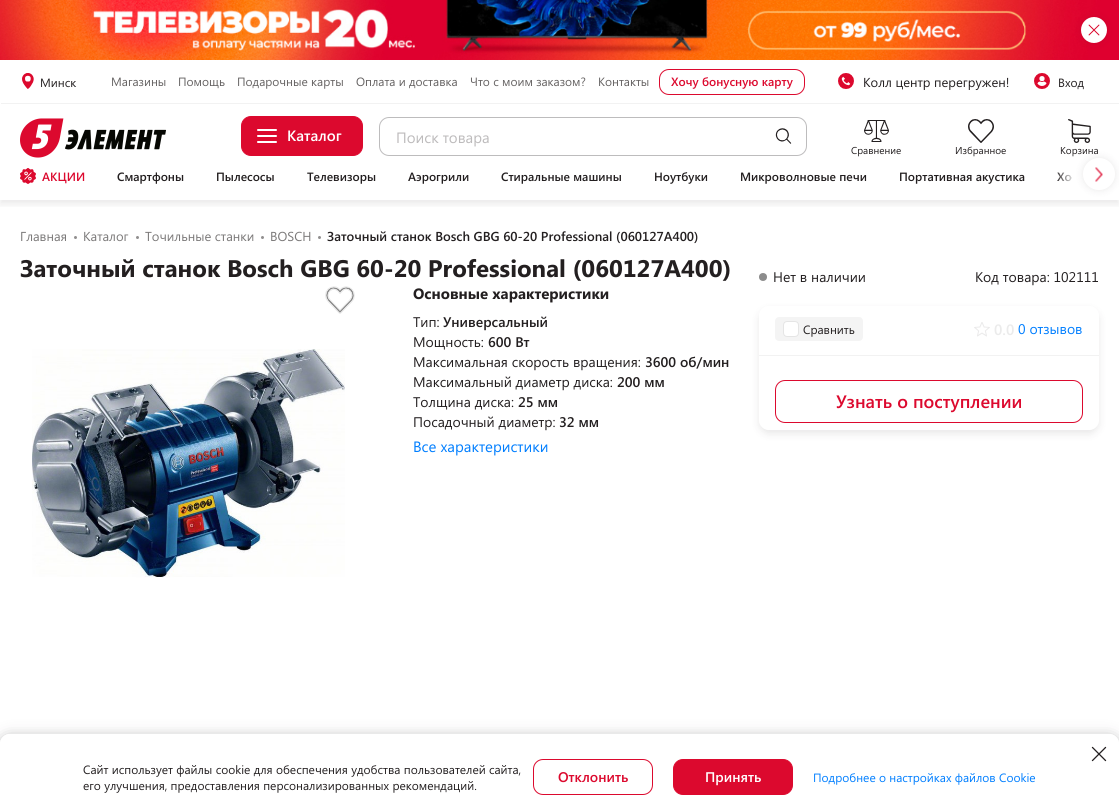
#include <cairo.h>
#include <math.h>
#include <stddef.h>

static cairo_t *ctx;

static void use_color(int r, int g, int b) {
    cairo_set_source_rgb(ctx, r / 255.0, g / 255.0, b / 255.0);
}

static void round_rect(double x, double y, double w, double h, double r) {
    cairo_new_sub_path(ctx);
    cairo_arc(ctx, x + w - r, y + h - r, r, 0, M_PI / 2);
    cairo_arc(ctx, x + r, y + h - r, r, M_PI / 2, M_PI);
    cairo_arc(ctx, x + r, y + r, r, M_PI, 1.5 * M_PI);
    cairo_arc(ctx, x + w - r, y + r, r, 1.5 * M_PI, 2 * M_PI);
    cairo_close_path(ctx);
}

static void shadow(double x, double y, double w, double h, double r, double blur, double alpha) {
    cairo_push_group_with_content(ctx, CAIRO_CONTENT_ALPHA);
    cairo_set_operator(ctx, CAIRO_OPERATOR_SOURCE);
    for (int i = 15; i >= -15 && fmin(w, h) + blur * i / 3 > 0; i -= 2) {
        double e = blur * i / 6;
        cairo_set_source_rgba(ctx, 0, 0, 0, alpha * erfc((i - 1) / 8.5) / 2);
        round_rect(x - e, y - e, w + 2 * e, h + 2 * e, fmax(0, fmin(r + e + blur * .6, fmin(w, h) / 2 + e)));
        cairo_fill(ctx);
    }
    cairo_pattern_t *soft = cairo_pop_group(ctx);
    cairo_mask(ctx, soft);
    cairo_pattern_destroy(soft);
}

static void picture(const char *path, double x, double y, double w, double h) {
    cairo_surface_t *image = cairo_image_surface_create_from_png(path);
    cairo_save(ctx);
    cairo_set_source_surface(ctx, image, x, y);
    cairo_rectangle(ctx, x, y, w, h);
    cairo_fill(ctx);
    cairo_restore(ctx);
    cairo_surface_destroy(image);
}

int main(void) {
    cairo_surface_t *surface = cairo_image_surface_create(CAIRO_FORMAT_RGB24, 1119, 807);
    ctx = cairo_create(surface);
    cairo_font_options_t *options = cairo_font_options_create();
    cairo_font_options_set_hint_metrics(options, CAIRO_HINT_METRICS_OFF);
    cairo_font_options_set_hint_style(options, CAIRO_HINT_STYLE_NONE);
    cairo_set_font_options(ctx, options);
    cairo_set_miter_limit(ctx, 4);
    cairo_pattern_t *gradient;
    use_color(255, 255, 255);
    cairo_paint(ctx);
    cairo_save(ctx);
    cairo_rectangle(ctx, 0, 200, 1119, 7);
    cairo_clip(ctx);
    use_color(35, 31, 32);
    shadow(0, 4, 1119, 200, 0, 4, 0.1);
    cairo_restore(ctx);
    picture("img1.png", 0, 0, 1119, 60);
    use_color(35, 31, 32);
    shadow(1081, 17, 26, 26, 13, 4, 0.1);
    use_color(255, 255, 255);
    cairo_arc(ctx, 1094, 30, 13, 0, 2 * M_PI);
    cairo_fill(ctx);
    picture("img2.png", 1088, 24, 12, 12);
    picture("img3.png", 22, 73, 12, 16);
    cairo_select_font_face(ctx, "Segoe UI", CAIRO_FONT_SLANT_NORMAL, CAIRO_FONT_WEIGHT_NORMAL);
    cairo_set_font_size(ctx, 12);
    use_color(35, 31, 32);
    cairo_move_to(ctx, 40, 87);
    cairo_show_text(ctx, "Минск");
    use_color(101, 98, 98);
    cairo_move_to(ctx, 111, 86);
    cairo_show_text(ctx, "Магазины");
    cairo_move_to(ctx, 178, 86);
    cairo_show_text(ctx, "Помощь");
    cairo_move_to(ctx, 237, 86);
    cairo_show_text(ctx, "Подарочные карты");
    cairo_move_to(ctx, 356, 86);
    cairo_show_text(ctx, "Оплата и доставка");
    cairo_move_to(ctx, 470, 86);
    cairo_show_text(ctx, "Что с моим заказом?");
    cairo_move_to(ctx, 598, 86);
    cairo_show_text(ctx, "Контакты");
    round_rect(659.5, 69.5, 145, 25, 9.5);
    use_color(220, 9, 46);
    cairo_set_line_width(ctx, 1);
    cairo_stroke(ctx);
    cairo_select_font_face(ctx, "Segoe UI SemiBold", CAIRO_FONT_SLANT_NORMAL, CAIRO_FONT_WEIGHT_NORMAL);
    cairo_move_to(ctx, 671, 86);
    cairo_show_text(ctx, "Хочу бонусную карту");
    picture("img4.png", 838, 73, 16, 16);
    cairo_select_font_face(ctx, "Segoe UI", CAIRO_FONT_SLANT_NORMAL, CAIRO_FONT_WEIGHT_NORMAL);
    cairo_set_font_size(ctx, 13);
    use_color(35, 31, 32);
    cairo_move_to(ctx, 863, 87);
    cairo_show_text(ctx, "Колл центр перегружен!");
    picture("img5.png", 1034, 73, 16, 16);
    cairo_set_font_size(ctx, 12);
    cairo_move_to(ctx, 1058, 87);
    cairo_show_text(ctx, "Вход");
    use_color(242, 242, 242);
    cairo_rectangle(ctx, 1, 103, 1118, 1);
    cairo_fill(ctx);
    picture("img6.png", 20, 118, 146, 40);
    use_color(220, 9, 46);
    round_rect(241.5, 116.5, 121, 39, 9.5);
    cairo_fill_preserve(ctx);
    cairo_stroke(ctx);
    use_color(255, 255, 255);
    round_rect(257, 135, 20, 2, 1);
    cairo_fill(ctx);
    round_rect(257, 129, 20, 2, 1);
    cairo_fill(ctx);
    round_rect(257, 141, 20, 2, 1);
    cairo_fill(ctx);
    cairo_select_font_face(ctx, "Segoe UI SemiBold", CAIRO_FONT_SLANT_NORMAL, CAIRO_FONT_WEIGHT_NORMAL);
    cairo_set_font_size(ctx, 15);
    cairo_move_to(ctx, 287, 141);
    cairo_show_text(ctx, "Каталог");
    round_rect(379.5, 117.5, 427, 38, 9.5);
    use_color(189, 188, 189);
    cairo_stroke(ctx);
    cairo_select_font_face(ctx, "Segoe UI", CAIRO_FONT_SLANT_NORMAL, CAIRO_FONT_WEIGHT_NORMAL);
    use_color(189, 187, 188);
    cairo_move_to(ctx, 396, 143);
    cairo_show_text(ctx, "Поиск товара");
    picture("img7.png", 775, 128, 17, 16);
    picture("img8.png", 864, 120, 25, 22);
    cairo_set_font_size(ctx, 10);
    use_color(35, 31, 32);
    cairo_move_to(ctx, 851, 154);
    cairo_show_text(ctx, "Сравнение");
    picture("img9.png", 968, 119, 26, 24);
    cairo_move_to(ctx, 955, 154);
    cairo_show_text(ctx, "Избранное");
    picture("img10.png", 1068, 119, 23, 24);
    cairo_move_to(ctx, 1060, 154);
    cairo_show_text(ctx, "Корзина");
    picture("img11.png", 20, 168, 16, 16);
    cairo_select_font_face(ctx, "Segoe UI SemiBold", CAIRO_FONT_SLANT_NORMAL, CAIRO_FONT_WEIGHT_NORMAL);
    cairo_set_font_size(ctx, 12);
    use_color(220, 9, 46);
    cairo_move_to(ctx, 42, 181);
    cairo_show_text(ctx, "АКЦИИ");
    use_color(35, 31, 32);
    cairo_move_to(ctx, 117, 181);
    cairo_show_text(ctx, "Смартфоны");
    cairo_move_to(ctx, 216, 181);
    cairo_show_text(ctx, "Пылесосы");
    cairo_move_to(ctx, 307, 181);
    cairo_show_text(ctx, "Телевизоры");
    cairo_move_to(ctx, 408, 181);
    cairo_show_text(ctx, "Аэрогрили");
    cairo_move_to(ctx, 501, 181);
    cairo_show_text(ctx, "Стиральные машины");
    cairo_move_to(ctx, 654, 181);
    cairo_show_text(ctx, "Ноутбуки");
    cairo_move_to(ctx, 740, 181);
    cairo_show_text(ctx, "Микроволновые печи");
    cairo_move_to(ctx, 899, 181);
    cairo_show_text(ctx, "Портативная акустика");
    cairo_move_to(ctx, 1057, 181);
    cairo_show_text(ctx, "Хо");
    gradient = cairo_pattern_create_linear(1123, 176, 1055, 176);
    cairo_pattern_add_color_stop_rgba(gradient, 0, 1, 1, 1, 1);
    cairo_pattern_add_color_stop_rgba(gradient, 0.7, 1, 1, 1, 1);
    cairo_pattern_add_color_stop_rgba(gradient, 1, 1, 1, 1, 0);
    cairo_set_source(ctx, gradient);
    cairo_pattern_destroy(gradient);
    cairo_rectangle(ctx, 1057, 172, 14, 10);
    cairo_fill(ctx);
    use_color(35, 31, 32);
    shadow(1083, 158, 32, 32, 16, 4, 0.1);
    use_color(255, 255, 255);
    cairo_arc(ctx, 1099, 174, 16, 0, 2 * M_PI);
    cairo_fill(ctx);
    picture("img12.png", 1095, 167, 8, 15);
    cairo_select_font_face(ctx, "Segoe UI", CAIRO_FONT_SLANT_NORMAL, CAIRO_FONT_WEIGHT_NORMAL);
    cairo_set_font_size(ctx, 13);
    use_color(123, 121, 121);
    cairo_move_to(ctx, 20, 241);
    cairo_show_text(ctx, "Главная");
    use_color(145, 143, 143);
    cairo_new_path(ctx);
    cairo_arc(ctx, 75.5, 237.5, 1.5, 0, 2 * M_PI);
    cairo_fill(ctx);
    use_color(123, 121, 121);
    cairo_move_to(ctx, 83, 241);
    cairo_show_text(ctx, "Каталог");
    use_color(145, 143, 143);
    cairo_new_path(ctx);
    cairo_arc(ctx, 137.5, 237.5, 1.5, 0, 2 * M_PI);
    cairo_fill(ctx);
    use_color(123, 121, 121);
    cairo_move_to(ctx, 145, 241);
    cairo_show_text(ctx, "Точильные станки");
    use_color(145, 143, 143);
    cairo_new_path(ctx);
    cairo_arc(ctx, 262.5, 237.5, 1.5, 0, 2 * M_PI);
    cairo_fill(ctx);
    use_color(123, 121, 121);
    cairo_move_to(ctx, 270, 241);
    cairo_show_text(ctx, "BOSCH");
    use_color(145, 143, 143);
    cairo_new_path(ctx);
    cairo_arc(ctx, 319.5, 237.5, 1.5, 0, 2 * M_PI);
    cairo_fill(ctx);
    cairo_select_font_face(ctx, "Segoe UI SemiBold", CAIRO_FONT_SLANT_NORMAL, CAIRO_FONT_WEIGHT_NORMAL);
    use_color(35, 31, 32);
    cairo_move_to(ctx, 327, 241);
    cairo_show_text(ctx, "Заточный станок Bosch GBG 60-20 Professional (060127A400)");
    cairo_select_font_face(ctx, "Segoe UI", CAIRO_FONT_SLANT_NORMAL, CAIRO_FONT_WEIGHT_BOLD);
    cairo_set_font_size(ctx, 24);
    cairo_move_to(ctx, 20, 277);
    cairo_show_text(ctx, "Заточный станок Bosch GBG 60-20 Professional (060127A400)");
    picture("img13.png", 325, 286, 30, 28);
    picture("img14.png", 32, 349, 313, 229);
    cairo_set_font_size(ctx, 15);
    cairo_move_to(ctx, 413, 299);
    cairo_show_text(ctx, "Основные характеристики");
    cairo_select_font_face(ctx, "Segoe UI", CAIRO_FONT_SLANT_NORMAL, CAIRO_FONT_WEIGHT_NORMAL);
    cairo_set_font_size(ctx, 14);
    cairo_move_to(ctx, 413, 327);
    cairo_show_text(ctx, "Тип:");
    cairo_select_font_face(ctx, "Segoe UI SemiBold", CAIRO_FONT_SLANT_NORMAL, CAIRO_FONT_WEIGHT_NORMAL);
    cairo_move_to(ctx, 443, 327);
    cairo_show_text(ctx, "Универсальный");
    cairo_select_font_face(ctx, "Segoe UI", CAIRO_FONT_SLANT_NORMAL, CAIRO_FONT_WEIGHT_NORMAL);
    cairo_move_to(ctx, 413, 347);
    cairo_show_text(ctx, "Мощность:");
    cairo_select_font_face(ctx, "Segoe UI SemiBold", CAIRO_FONT_SLANT_NORMAL, CAIRO_FONT_WEIGHT_NORMAL);
    cairo_move_to(ctx, 488, 347);
    cairo_show_text(ctx, "600 Вт");
    cairo_select_font_face(ctx, "Segoe UI", CAIRO_FONT_SLANT_NORMAL, CAIRO_FONT_WEIGHT_NORMAL);
    cairo_move_to(ctx, 413, 367);
    cairo_show_text(ctx, "Максимальная скорость вращения:");
    cairo_select_font_face(ctx, "Segoe UI SemiBold", CAIRO_FONT_SLANT_NORMAL, CAIRO_FONT_WEIGHT_NORMAL);
    cairo_move_to(ctx, 645, 367);
    cairo_show_text(ctx, "3600 об/мин");
    cairo_select_font_face(ctx, "Segoe UI", CAIRO_FONT_SLANT_NORMAL, CAIRO_FONT_WEIGHT_NORMAL);
    cairo_move_to(ctx, 413, 387);
    cairo_show_text(ctx, "Максимальный диаметр диска:");
    cairo_select_font_face(ctx, "Segoe UI SemiBold", CAIRO_FONT_SLANT_NORMAL, CAIRO_FONT_WEIGHT_NORMAL);
    cairo_move_to(ctx, 617, 387);
    cairo_show_text(ctx, "200 мм");
    cairo_select_font_face(ctx, "Segoe UI", CAIRO_FONT_SLANT_NORMAL, CAIRO_FONT_WEIGHT_NORMAL);
    cairo_move_to(ctx, 413, 407);
    cairo_show_text(ctx, "Толщина диска:");
    cairo_select_font_face(ctx, "Segoe UI SemiBold", CAIRO_FONT_SLANT_NORMAL, CAIRO_FONT_WEIGHT_NORMAL);
    cairo_move_to(ctx, 518, 407);
    cairo_show_text(ctx, "25 мм");
    cairo_select_font_face(ctx, "Segoe UI", CAIRO_FONT_SLANT_NORMAL, CAIRO_FONT_WEIGHT_NORMAL);
    cairo_move_to(ctx, 413, 427);
    cairo_show_text(ctx, "Посадочный диаметр:");
    cairo_select_font_face(ctx, "Segoe UI SemiBold", CAIRO_FONT_SLANT_NORMAL, CAIRO_FONT_WEIGHT_NORMAL);
    cairo_move_to(ctx, 559, 427);
    cairo_show_text(ctx, "32 мм");
    cairo_select_font_face(ctx, "Segoe UI", CAIRO_FONT_SLANT_NORMAL, CAIRO_FONT_WEIGHT_NORMAL);
    cairo_set_font_size(ctx, 15);
    use_color(0, 126, 255);
    cairo_move_to(ctx, 413, 452);
    cairo_show_text(ctx, "Все характеристики");
    use_color(140, 140, 140);
    cairo_new_path(ctx);
    cairo_arc(ctx, 763, 277, 4, 0, 2 * M_PI);
    cairo_fill(ctx);
    cairo_set_font_size(ctx, 14);
    use_color(35, 31, 32);
    cairo_move_to(ctx, 773, 282);
    cairo_show_text(ctx, "Нет в наличии");
    cairo_move_to(ctx, 975, 282);
    cairo_show_text(ctx, "Код товара: 102111");
    cairo_save(ctx);
    cairo_set_fill_rule(ctx, CAIRO_FILL_RULE_EVEN_ODD);
    cairo_new_path(ctx);
    cairo_move_to(ctx, 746, 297);
    cairo_line_to(ctx, 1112, 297);
    cairo_line_to(ctx, 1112, 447);
    cairo_line_to(ctx, 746, 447);
    cairo_close_path(ctx);
    cairo_move_to(ctx, 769, 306);
    cairo_line_to(ctx, 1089, 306);
    cairo_curve_to(ctx, 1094.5, 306, 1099, 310.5, 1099, 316);
    cairo_line_to(ctx, 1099, 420);
    cairo_curve_to(ctx, 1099, 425.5, 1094.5, 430, 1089, 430);
    cairo_line_to(ctx, 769, 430);
    cairo_curve_to(ctx, 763.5, 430, 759, 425.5, 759, 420);
    cairo_line_to(ctx, 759, 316);
    cairo_curve_to(ctx, 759, 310.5, 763.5, 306, 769, 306);
    cairo_close_path(ctx);
    cairo_clip(ctx);
    use_color(35, 31, 32);
    shadow(759, 310, 340, 124, 10, 4, 0.1);
    cairo_restore(ctx);
    use_color(242, 242, 242);
    cairo_rectangle(ctx, 759, 355, 340, 1);
    cairo_fill(ctx);
    use_color(244, 244, 244);
    round_rect(775, 317, 88, 24, 4);
    cairo_fill(ctx);
    use_color(255, 255, 255);
    round_rect(783.5, 321.5, 15, 15, 3.5);
    cairo_fill_preserve(ctx);
    use_color(229, 229, 229);
    cairo_stroke(ctx);
    cairo_set_font_size(ctx, 12);
    use_color(35, 31, 32);
    cairo_move_to(ctx, 803, 334);
    cairo_show_text(ctx, "Сравнить");
    picture("img15.png", 974, 322, 16, 15);
    cairo_select_font_face(ctx, "Segoe UI SemiBold", CAIRO_FONT_SLANT_NORMAL, CAIRO_FONT_WEIGHT_NORMAL);
    cairo_set_font_size(ctx, 15);
    use_color(235, 235, 235);
    cairo_move_to(ctx, 994, 335);
    cairo_show_text(ctx, "0.0");
    cairo_select_font_face(ctx, "Segoe UI", CAIRO_FONT_SLANT_NORMAL, CAIRO_FONT_WEIGHT_NORMAL);
    cairo_set_font_size(ctx, 14);
    use_color(0, 126, 255);
    cairo_move_to(ctx, 1018, 334);
    cairo_show_text(ctx, "0 отзывов");
    round_rect(775.5, 380.5, 307, 42, 9.5);
    use_color(220, 9, 46);
    cairo_stroke(ctx);
    cairo_select_font_face(ctx, "Segoe UI SemiBold", CAIRO_FONT_SLANT_NORMAL, CAIRO_FONT_WEIGHT_NORMAL);
    cairo_set_font_size(ctx, 18);
    cairo_move_to(ctx, 836, 408);
    cairo_show_text(ctx, "Узнать о поступлении");
    cairo_save(ctx);
    cairo_set_fill_rule(ctx, CAIRO_FILL_RULE_EVEN_ODD);
    cairo_new_path(ctx);
    cairo_move_to(ctx, 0, 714);
    cairo_line_to(ctx, 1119, 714);
    cairo_line_to(ctx, 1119, 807);
    cairo_line_to(ctx, 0, 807);
    cairo_close_path(ctx);
    cairo_move_to(ctx, 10, 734);
    cairo_line_to(ctx, 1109, 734);
    cairo_curve_to(ctx, 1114.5, 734, 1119, 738.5, 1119, 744);
    cairo_line_to(ctx, 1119, 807);
    cairo_line_to(ctx, 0, 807);
    cairo_line_to(ctx, 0, 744);
    cairo_curve_to(ctx, 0, 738.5, 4.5, 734, 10, 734);
    cairo_close_path(ctx);
    cairo_clip(ctx);
    use_color(35, 31, 32);
    shadow(0, 738, 1119, 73, 10, 7.5, 0.4);
    cairo_restore(ctx);
    cairo_set_source_rgba(ctx, 1, 1, 1, 0.92);
    cairo_new_path(ctx);
    cairo_move_to(ctx, 10, 734);
    cairo_line_to(ctx, 1109, 734);
    cairo_curve_to(ctx, 1114.5, 734, 1119, 738.5, 1119, 744);
    cairo_line_to(ctx, 1119, 807);
    cairo_line_to(ctx, 0, 807);
    cairo_line_to(ctx, 0, 744);
    cairo_curve_to(ctx, 0, 738.5, 4.5, 734, 10, 734);
    cairo_close_path(ctx);
    cairo_fill(ctx);
    picture("img16.png", 1091, 746, 16, 16);
    cairo_select_font_face(ctx, "Segoe UI", CAIRO_FONT_SLANT_NORMAL, CAIRO_FONT_WEIGHT_NORMAL);
    cairo_set_font_size(ctx, 12);
    use_color(35, 31, 32);
    cairo_move_to(ctx, 83, 774);
    cairo_show_text(ctx, "Cайт использует файлы cookie для обеспечения удобства пользователей сайта,");
    cairo_move_to(ctx, 83, 790);
    cairo_show_text(ctx, "его улучшения, предоставления персонализированных рекомендаций.");
    round_rect(533.5, 759.5, 119, 35, 9.5);
    use_color(220, 9, 46);
    cairo_stroke(ctx);
    cairo_select_font_face(ctx, "Segoe UI SemiBold", CAIRO_FONT_SLANT_NORMAL, CAIRO_FONT_WEIGHT_NORMAL);
    cairo_set_font_size(ctx, 14);
    cairo_move_to(ctx, 558, 782);
    cairo_show_text(ctx, "Отклонить");
    round_rect(673.5, 759.5, 119, 35, 9.5);
    cairo_fill_preserve(ctx);
    cairo_stroke(ctx);
    use_color(255, 255, 255);
    cairo_move_to(ctx, 705, 782);
    cairo_show_text(ctx, "Принять");
    cairo_select_font_face(ctx, "Segoe UI", CAIRO_FONT_SLANT_NORMAL, CAIRO_FONT_WEIGHT_NORMAL);
    cairo_set_font_size(ctx, 12);
    use_color(0, 126, 255);
    cairo_move_to(ctx, 813, 782);
    cairo_show_text(ctx, "Подробнее о настройках файлов Cookie");
    cairo_surface_write_to_png(surface, "result.png");
    cairo_font_options_destroy(options);
    cairo_destroy(ctx);
    cairo_surface_destroy(surface);
    return 0;
}
